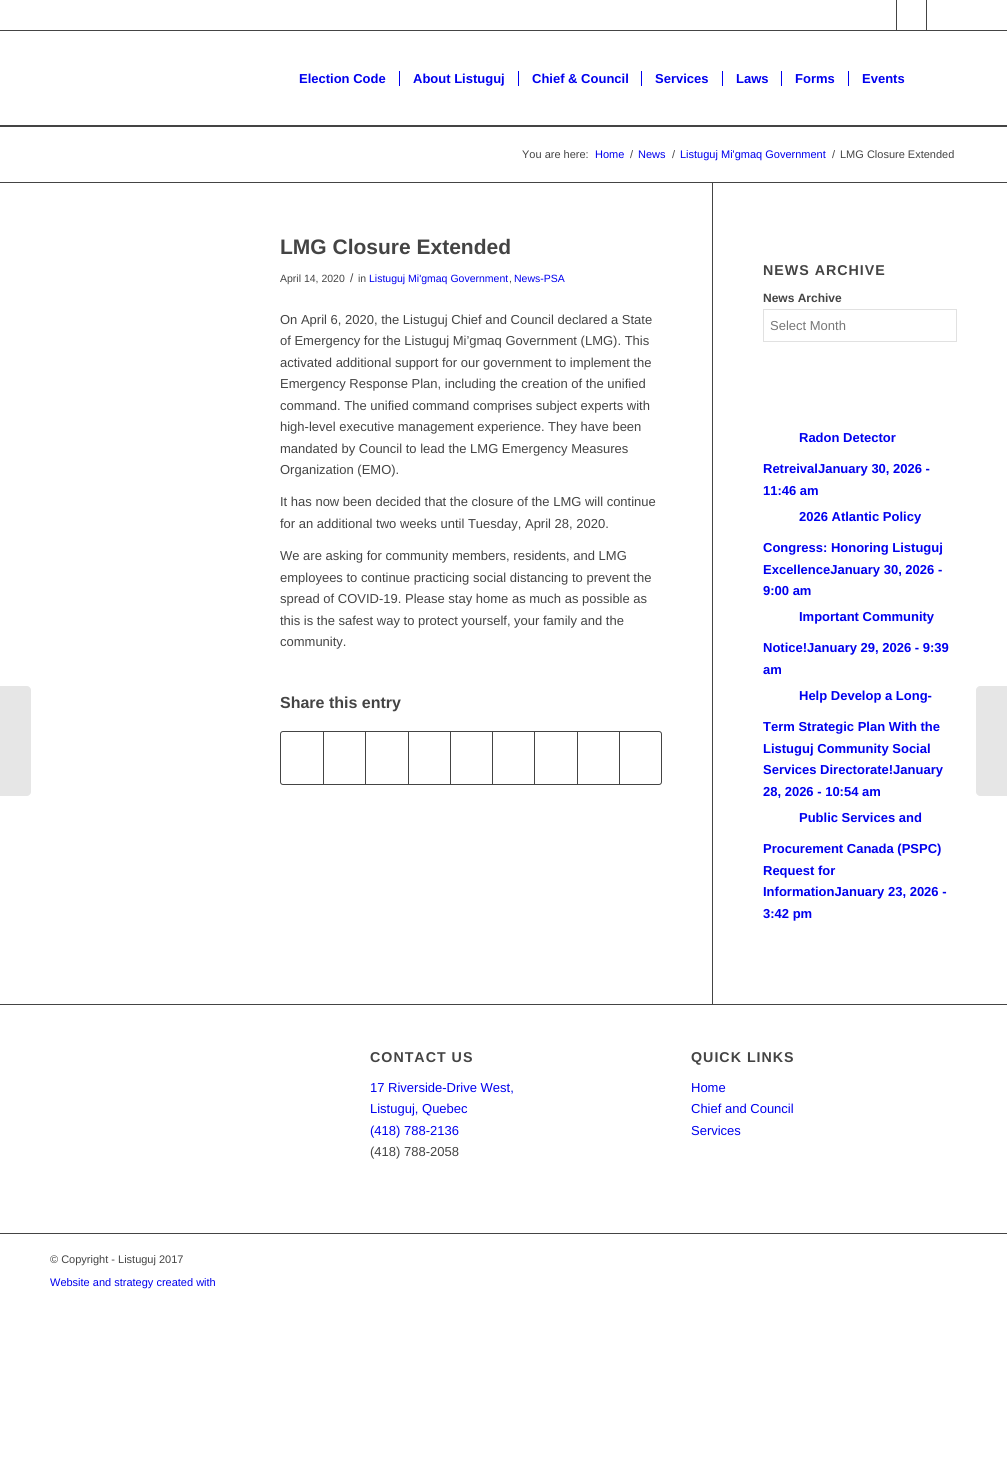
#include <cairo.h>
#include <math.h>
#include <stddef.h>

static cairo_t *ctx;

static void use_color(int r, int g, int b) {
    cairo_set_source_rgb(ctx, r / 255.0, g / 255.0, b / 255.0);
}

static void spaced_text(double x, double y, const char *s, double letter, double word) {
    cairo_move_to(ctx, x, y);
    while (*s) {
        char ch[5] = {0};
        int n = 0;
        do ch[n++] = *s++; while ((*s & 0xC0) == 0x80);
        cairo_show_text(ctx, ch);
        cairo_rel_move_to(ctx, letter + word * (*ch == ' '), 0);
    }
}

static void round_rect(double x, double y, double w, double h, double r) {
    cairo_new_sub_path(ctx);
    cairo_arc(ctx, x + w - r, y + h - r, r, 0, M_PI / 2);
    cairo_arc(ctx, x + r, y + h - r, r, M_PI / 2, M_PI);
    cairo_arc(ctx, x + r, y + r, r, M_PI, 1.5 * M_PI);
    cairo_arc(ctx, x + w - r, y + r, r, 1.5 * M_PI, 2 * M_PI);
    cairo_close_path(ctx);
}

int main(void) {
    cairo_surface_t *surface = cairo_image_surface_create(CAIRO_FORMAT_RGB24, 1007, 1482);
    ctx = cairo_create(surface);
    cairo_font_options_t *options = cairo_font_options_create();
    cairo_font_options_set_hint_metrics(options, CAIRO_HINT_METRICS_OFF);
    cairo_font_options_set_hint_style(options, CAIRO_HINT_STYLE_NONE);
    cairo_set_font_options(ctx, options);
    cairo_set_miter_limit(ctx, 4);
    use_color(255, 255, 255);
    cairo_paint(ctx);
    use_color(68, 68, 68);
    cairo_rectangle(ctx, 896, 0, 1, 30);
    cairo_fill(ctx);
    cairo_rectangle(ctx, 926, 0, 1, 30);
    cairo_fill(ctx);
    cairo_rectangle(ctx, 0, 30, 1007, 1);
    cairo_fill(ctx);
    cairo_select_font_face(ctx, "Liberation Sans", CAIRO_FONT_SLANT_NORMAL, CAIRO_FONT_WEIGHT_BOLD);
    cairo_set_font_size(ctx, 13);
    use_color(0, 0, 238);
    cairo_move_to(ctx, 299, 83);
    cairo_show_text(ctx, "Election Code");
    cairo_move_to(ctx, 413, 83);
    cairo_show_text(ctx, "About Listuguj");
    cairo_rectangle(ctx, 399, 71, 1, 15);
    cairo_fill(ctx);
    cairo_move_to(ctx, 532, 83);
    cairo_show_text(ctx, "Chief & Council");
    cairo_rectangle(ctx, 518, 71, 1, 15);
    cairo_fill(ctx);
    cairo_move_to(ctx, 655, 83);
    cairo_show_text(ctx, "Services");
    cairo_rectangle(ctx, 641, 71, 1, 15);
    cairo_fill(ctx);
    cairo_move_to(ctx, 736, 83);
    cairo_show_text(ctx, "Laws");
    cairo_rectangle(ctx, 722, 71, 1, 15);
    cairo_fill(ctx);
    cairo_move_to(ctx, 795, 83);
    cairo_show_text(ctx, "Forms");
    cairo_rectangle(ctx, 781, 71, 1, 15);
    cairo_fill(ctx);
    cairo_move_to(ctx, 862, 83);
    cairo_show_text(ctx, "Events");
    cairo_rectangle(ctx, 848, 71, 1, 15);
    cairo_fill(ctx);
    use_color(230, 230, 230);
    cairo_new_path(ctx);
    cairo_move_to(ctx, 0, 686);
    cairo_line_to(ctx, 27, 686);
    cairo_curve_to(ctx, 29, 686, 31, 688, 31, 690);
    cairo_line_to(ctx, 31, 792);
    cairo_curve_to(ctx, 31, 794, 29, 796, 27, 796);
    cairo_line_to(ctx, 0, 796);
    cairo_close_path(ctx);
    cairo_fill(ctx);
    use_color(68, 68, 68);
    cairo_rectangle(ctx, 0, 125, 1007, 2);
    cairo_fill(ctx);
    cairo_select_font_face(ctx, "Liberation Sans", CAIRO_FONT_SLANT_NORMAL, CAIRO_FONT_WEIGHT_NORMAL);
    cairo_set_font_size(ctx, 11);
    cairo_move_to(ctx, 522, 158);
    cairo_show_text(ctx, "You are here:");
    use_color(0, 0, 238);
    cairo_move_to(ctx, 595, 158);
    cairo_show_text(ctx, "Home");
    use_color(68, 68, 68);
    cairo_move_to(ctx, 630, 158);
    cairo_show_text(ctx, "/");
    use_color(0, 0, 238);
    cairo_move_to(ctx, 638, 158);
    cairo_show_text(ctx, "News");
    use_color(68, 68, 68);
    cairo_move_to(ctx, 672, 158);
    cairo_show_text(ctx, "/");
    use_color(0, 0, 238);
    cairo_move_to(ctx, 680, 158);
    cairo_show_text(ctx, "Listuguj Mi'gmaq Government");
    use_color(68, 68, 68);
    cairo_move_to(ctx, 832, 158);
    cairo_show_text(ctx, "/");
    cairo_move_to(ctx, 840, 158);
    cairo_show_text(ctx, "LMG Closure Extended");
    cairo_rectangle(ctx, 0, 182, 1007, 1);
    cairo_fill(ctx);
    cairo_select_font_face(ctx, "Liberation Sans", CAIRO_FONT_SLANT_NORMAL, CAIRO_FONT_WEIGHT_BOLD);
    cairo_set_font_size(ctx, 21);
    cairo_move_to(ctx, 280, 254);
    cairo_show_text(ctx, "LMG Closure Extended");
    cairo_select_font_face(ctx, "Liberation Sans", CAIRO_FONT_SLANT_NORMAL, CAIRO_FONT_WEIGHT_NORMAL);
    cairo_set_font_size(ctx, 10.5);
    cairo_move_to(ctx, 280, 282);
    cairo_show_text(ctx, "April 14, 2020");
    cairo_set_font_size(ctx, 12);
    cairo_move_to(ctx, 350, 282);
    cairo_show_text(ctx, "/");
    cairo_set_font_size(ctx, 10.5);
    cairo_move_to(ctx, 358, 282);
    cairo_show_text(ctx, "in");
    use_color(0, 0, 238);
    cairo_move_to(ctx, 369, 282);
    cairo_show_text(ctx, "Listuguj Mi'gmaq Government");
    use_color(68, 68, 68);
    cairo_move_to(ctx, 509, 282);
    cairo_show_text(ctx, ",");
    use_color(0, 0, 238);
    cairo_move_to(ctx, 514, 282);
    cairo_show_text(ctx, "News-PSA");
    cairo_set_font_size(ctx, 13);
    use_color(68, 68, 68);
    cairo_move_to(ctx, 280, 324);
    cairo_show_text(ctx, "On April 6, 2020, the Listuguj Chief and Council declared a State");
    cairo_move_to(ctx, 280, 345);
    cairo_show_text(ctx, "of Emergency for the Listuguj Mi’gmaq Government (LMG). This");
    cairo_move_to(ctx, 280, 367);
    cairo_show_text(ctx, "activated additional support for our government to implement the");
    cairo_move_to(ctx, 280, 388);
    cairo_show_text(ctx, "Emergency Response Plan, including the creation of the unified");
    cairo_move_to(ctx, 280, 410);
    cairo_show_text(ctx, "command. The unified command comprises subject experts with");
    cairo_move_to(ctx, 280, 431);
    cairo_show_text(ctx, "high-level executive management experience. They have been");
    cairo_move_to(ctx, 280, 453);
    cairo_show_text(ctx, "mandated by Council to lead the LMG Emergency Measures");
    cairo_move_to(ctx, 280, 474);
    cairo_show_text(ctx, "Organization (EMO).");
    cairo_move_to(ctx, 280, 506);
    cairo_show_text(ctx, "It has now been decided that the closure of the LMG will continue");
    cairo_move_to(ctx, 280, 528);
    cairo_show_text(ctx, "for an additional two weeks until Tuesday, April 28, 2020.");
    cairo_move_to(ctx, 280, 560);
    cairo_show_text(ctx, "We are asking for community members, residents, and LMG");
    cairo_move_to(ctx, 280, 582);
    cairo_show_text(ctx, "employees to continue practicing social distancing to prevent the");
    cairo_move_to(ctx, 280, 603);
    cairo_show_text(ctx, "spread of COVID-19. Please stay home as much as possible as");
    cairo_move_to(ctx, 280, 625);
    cairo_show_text(ctx, "this is the safest way to protect yourself, your family and the");
    cairo_move_to(ctx, 280, 646);
    cairo_show_text(ctx, "community.");
    cairo_select_font_face(ctx, "Liberation Sans", CAIRO_FONT_SLANT_NORMAL, CAIRO_FONT_WEIGHT_BOLD);
    cairo_set_font_size(ctx, 16);
    cairo_move_to(ctx, 280, 708);
    cairo_show_text(ctx, "Share this entry");
    round_rect(280.5, 731.5, 381, 53, 2.5);
    cairo_set_line_width(ctx, 1);
    cairo_stroke(ctx);
    cairo_rectangle(ctx, 323, 732, 1, 52);
    cairo_fill(ctx);
    cairo_rectangle(ctx, 365, 732, 1, 52);
    cairo_fill(ctx);
    cairo_rectangle(ctx, 408, 732, 1, 52);
    cairo_fill(ctx);
    cairo_rectangle(ctx, 450, 732, 1, 52);
    cairo_fill(ctx);
    cairo_rectangle(ctx, 492, 732, 1, 52);
    cairo_fill(ctx);
    cairo_rectangle(ctx, 534, 732, 1, 52);
    cairo_fill(ctx);
    cairo_rectangle(ctx, 577, 732, 1, 52);
    cairo_fill(ctx);
    cairo_rectangle(ctx, 619, 732, 1, 52);
    cairo_fill(ctx);
    cairo_rectangle(ctx, 712, 183, 1, 821);
    cairo_fill(ctx);
    cairo_set_font_size(ctx, 14.25);
    spaced_text(763, 275, "NEWS ARCHIVE", 1, 0);
    cairo_set_font_size(ctx, 12);
    cairo_move_to(ctx, 763, 302);
    cairo_show_text(ctx, "News Archive");
    cairo_rectangle(ctx, 763.5, 309.5, 193, 32);
    use_color(225, 225, 225);
    cairo_stroke(ctx);
    cairo_select_font_face(ctx, "Liberation Sans", CAIRO_FONT_SLANT_NORMAL, CAIRO_FONT_WEIGHT_NORMAL);
    cairo_set_font_size(ctx, 13);
    use_color(119, 119, 119);
    cairo_move_to(ctx, 770, 330);
    cairo_show_text(ctx, "Select Month");
    cairo_select_font_face(ctx, "Liberation Sans", CAIRO_FONT_SLANT_NORMAL, CAIRO_FONT_WEIGHT_BOLD);
    use_color(0, 0, 238);
    cairo_move_to(ctx, 799, 442);
    cairo_show_text(ctx, "Radon Detector");
    cairo_move_to(ctx, 763, 473);
    cairo_show_text(ctx, "RetreivalJanuary 30, 2026 -");
    cairo_move_to(ctx, 763, 495);
    cairo_show_text(ctx, "11:46 am");
    cairo_move_to(ctx, 799, 521);
    cairo_show_text(ctx, "2026 Atlantic Policy");
    cairo_move_to(ctx, 763, 552);
    cairo_show_text(ctx, "Congress: Honoring Listuguj");
    cairo_move_to(ctx, 763, 574);
    cairo_show_text(ctx, "ExcellenceJanuary 30, 2026 -");
    cairo_move_to(ctx, 763, 595);
    cairo_show_text(ctx, "9:00 am");
    cairo_move_to(ctx, 799, 621);
    cairo_show_text(ctx, "Important Community");
    cairo_move_to(ctx, 763, 652);
    cairo_show_text(ctx, "Notice!January 29, 2026 - 9:39");
    cairo_move_to(ctx, 763, 674);
    cairo_show_text(ctx, "am");
    cairo_move_to(ctx, 799, 700);
    cairo_show_text(ctx, "Help Develop a Long-");
    cairo_move_to(ctx, 763, 731);
    cairo_show_text(ctx, "Term Strategic Plan With the");
    cairo_move_to(ctx, 763, 753);
    cairo_show_text(ctx, "Listuguj Community Social");
    cairo_move_to(ctx, 763, 774);
    cairo_show_text(ctx, "Services Directorate!January");
    cairo_move_to(ctx, 763, 796);
    cairo_show_text(ctx, "28, 2026 - 10:54 am");
    cairo_move_to(ctx, 799, 822);
    cairo_show_text(ctx, "Public Services and");
    cairo_move_to(ctx, 763, 853);
    cairo_show_text(ctx, "Procurement Canada (PSPC)");
    cairo_move_to(ctx, 763, 875);
    cairo_show_text(ctx, "Request for");
    cairo_move_to(ctx, 763, 896);
    cairo_show_text(ctx, "InformationJanuary 23, 2026 -");
    cairo_move_to(ctx, 763, 918);
    cairo_show_text(ctx, "3:42 pm");
    use_color(68, 68, 68);
    cairo_rectangle(ctx, 0, 1004, 1007, 1);
    cairo_fill(ctx);
    cairo_set_font_size(ctx, 14.25);
    spaced_text(370, 1062, "CONTACT US", 1, 0);
    cairo_select_font_face(ctx, "Liberation Sans", CAIRO_FONT_SLANT_NORMAL, CAIRO_FONT_WEIGHT_NORMAL);
    cairo_set_font_size(ctx, 13);
    use_color(0, 0, 238);
    cairo_move_to(ctx, 370, 1092);
    cairo_show_text(ctx, "17 Riverside-Drive West,");
    cairo_move_to(ctx, 370, 1113);
    cairo_show_text(ctx, "Listuguj, Quebec");
    cairo_move_to(ctx, 370, 1135);
    cairo_show_text(ctx, "(418) 788-2136");
    use_color(68, 68, 68);
    cairo_move_to(ctx, 370, 1156);
    cairo_show_text(ctx, "(418) 788-2058");
    cairo_select_font_face(ctx, "Liberation Sans", CAIRO_FONT_SLANT_NORMAL, CAIRO_FONT_WEIGHT_BOLD);
    cairo_set_font_size(ctx, 14.25);
    spaced_text(691, 1062, "QUICK LINKS", 1, 0);
    cairo_select_font_face(ctx, "Liberation Sans", CAIRO_FONT_SLANT_NORMAL, CAIRO_FONT_WEIGHT_NORMAL);
    cairo_set_font_size(ctx, 13);
    use_color(0, 0, 238);
    cairo_move_to(ctx, 691, 1092);
    cairo_show_text(ctx, "Home");
    cairo_move_to(ctx, 691, 1113);
    cairo_show_text(ctx, "Chief and Council");
    cairo_move_to(ctx, 691, 1135);
    cairo_show_text(ctx, "Services");
    use_color(68, 68, 68);
    cairo_rectangle(ctx, 0, 1233, 1007, 1);
    cairo_fill(ctx);
    cairo_set_font_size(ctx, 11);
    cairo_move_to(ctx, 50, 1263);
    cairo_show_text(ctx, "© Copyright - Listuguj 2017");
    use_color(0, 0, 238);
    cairo_move_to(ctx, 50, 1286);
    cairo_show_text(ctx, "Website and strategy created with");
    use_color(230, 230, 230);
    cairo_new_path(ctx);
    cairo_move_to(ctx, 980, 686);
    cairo_line_to(ctx, 1007, 686);
    cairo_line_to(ctx, 1007, 796);
    cairo_line_to(ctx, 980, 796);
    cairo_curve_to(ctx, 978, 796, 976, 794, 976, 792);
    cairo_line_to(ctx, 976, 690);
    cairo_curve_to(ctx, 976, 688, 978, 686, 980, 686);
    cairo_close_path(ctx);
    cairo_fill(ctx);
    cairo_surface_write_to_png(surface, "result.png");
    cairo_font_options_destroy(options);
    cairo_destroy(ctx);
    cairo_surface_destroy(surface);
    return 0;
}
